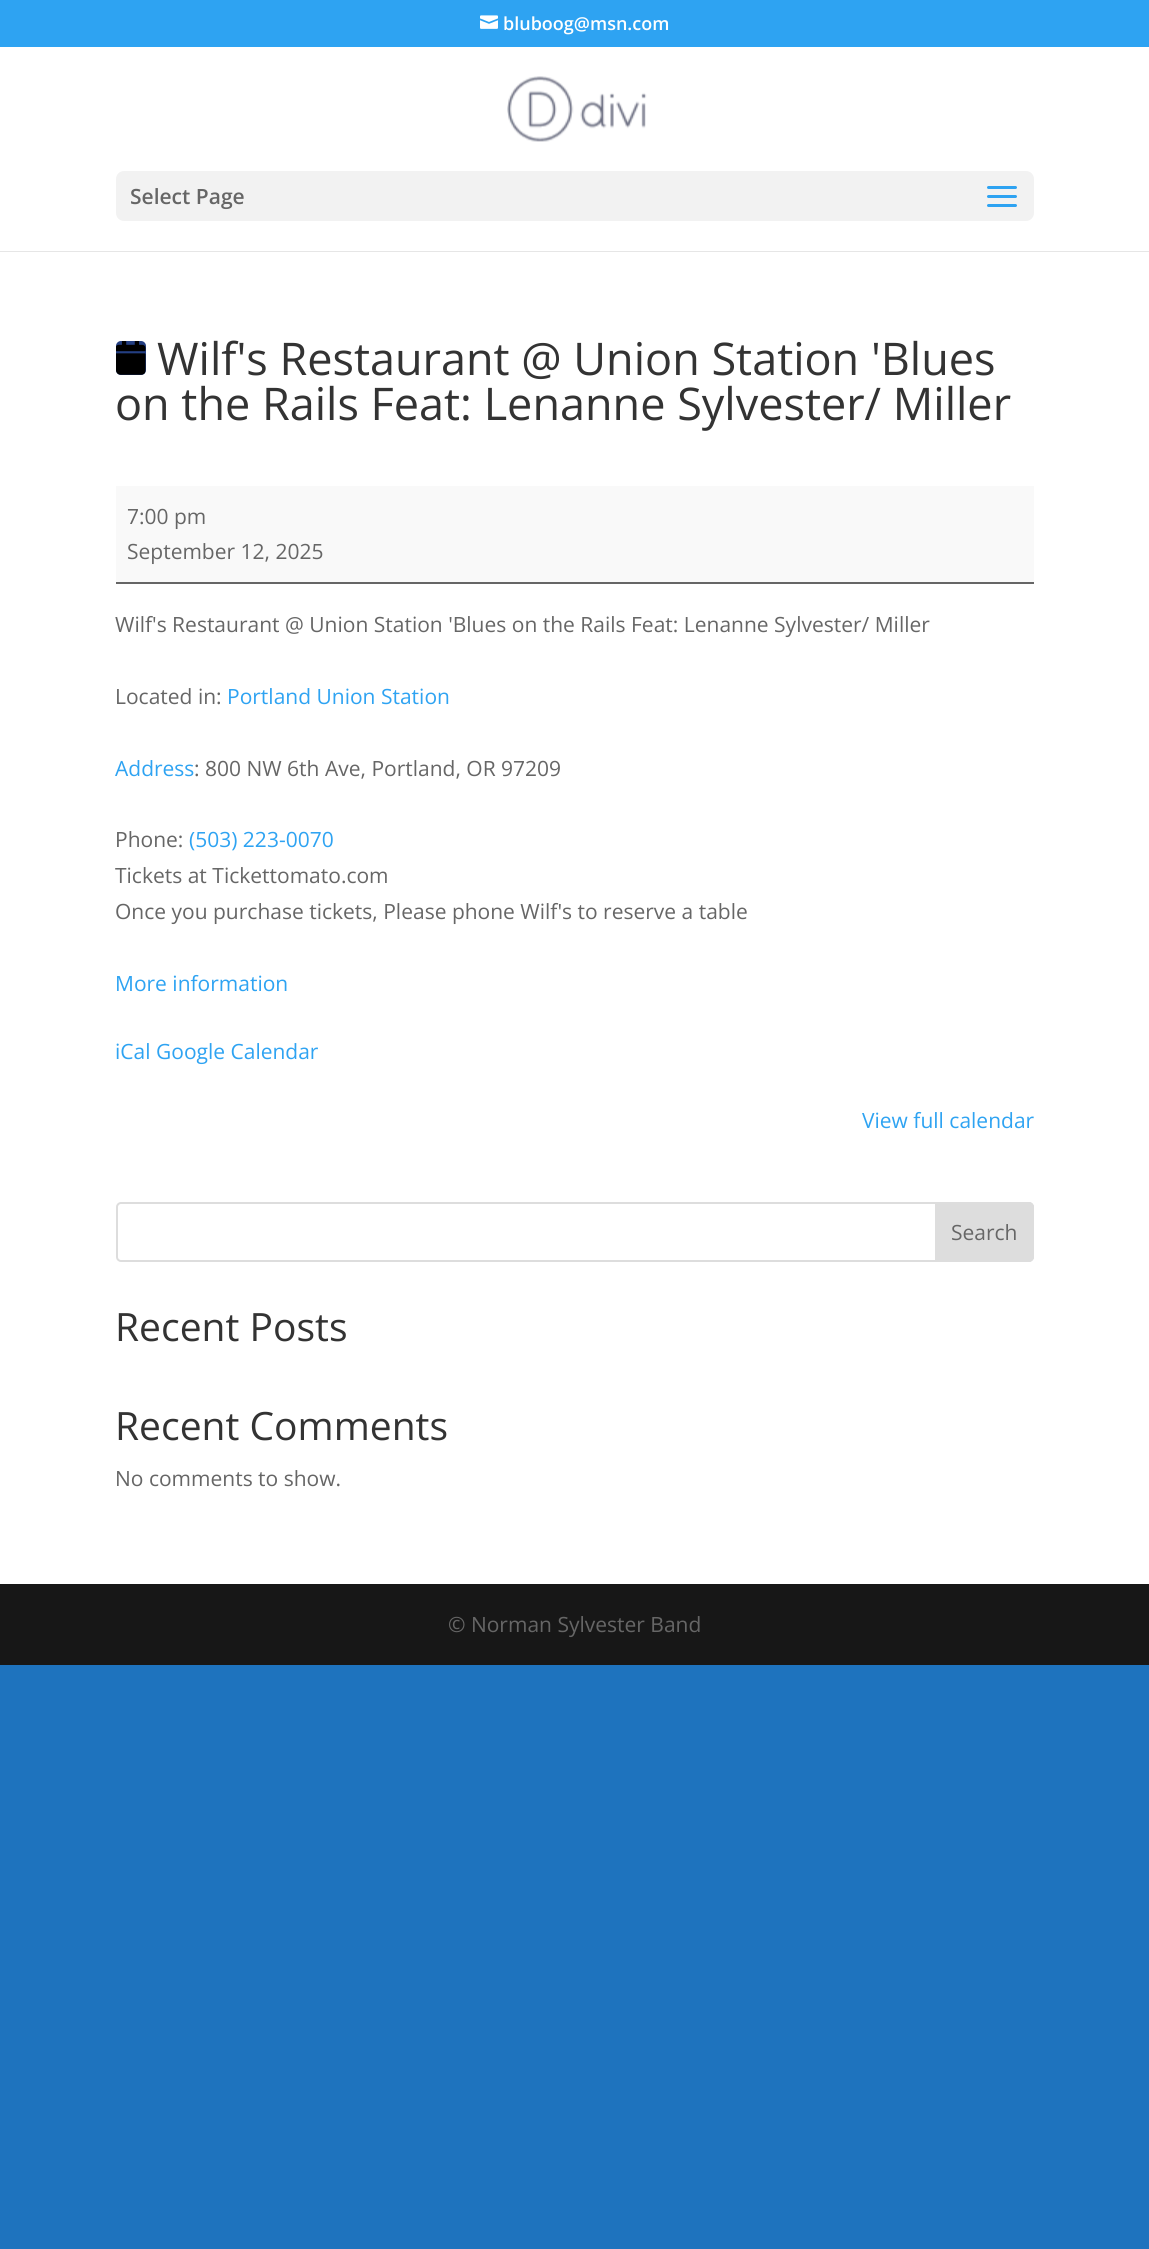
#include <cairo.h>
#include <math.h>
#include <stddef.h>

static cairo_t *ctx;

static void use_color(int r, int g, int b) {
    cairo_set_source_rgb(ctx, r / 255.0, g / 255.0, b / 255.0);
}

static void round_rect(double x, double y, double w, double h, double r) {
    cairo_new_sub_path(ctx);
    cairo_arc(ctx, x + w - r, y + h - r, r, 0, M_PI / 2);
    cairo_arc(ctx, x + r, y + h - r, r, M_PI / 2, M_PI);
    cairo_arc(ctx, x + r, y + r, r, M_PI, 1.5 * M_PI);
    cairo_arc(ctx, x + w - r, y + r, r, 1.5 * M_PI, 2 * M_PI);
    cairo_close_path(ctx);
}

static void picture(const char *path, double x, double y, double w, double h) {
    cairo_surface_t *image = cairo_image_surface_create_from_png(path);
    cairo_save(ctx);
    cairo_set_source_surface(ctx, image, x, y);
    cairo_rectangle(ctx, x, y, w, h);
    cairo_fill(ctx);
    cairo_restore(ctx);
    cairo_surface_destroy(image);
}

int main(void) {
    cairo_surface_t *surface = cairo_image_surface_create(CAIRO_FORMAT_RGB24, 1149, 2249);
    ctx = cairo_create(surface);
    cairo_font_options_t *options = cairo_font_options_create();
    cairo_font_options_set_hint_metrics(options, CAIRO_HINT_METRICS_OFF);
    cairo_font_options_set_hint_style(options, CAIRO_HINT_STYLE_NONE);
    cairo_set_font_options(ctx, options);
    cairo_set_miter_limit(ctx, 4);
    use_color(30, 115, 190);
    cairo_paint(ctx);
    use_color(46, 163, 242);
    cairo_rectangle(ctx, 0, 0, 1149, 47);
    cairo_fill(ctx);
    picture("img1.png", 480, 15, 18, 14);
    cairo_select_font_face(ctx, "Open Sans SemiBold", CAIRO_FONT_SLANT_NORMAL, CAIRO_FONT_WEIGHT_NORMAL);
    cairo_set_font_size(ctx, 18);
    use_color(255, 255, 255);
    cairo_move_to(ctx, 503, 30);
    cairo_show_text(ctx, "bluboog@msn.com");
    use_color(230, 230, 230);
    cairo_rectangle(ctx, 0, 251, 1149, 1);
    cairo_fill(ctx);
    use_color(255, 255, 255);
    cairo_rectangle(ctx, 0, 47, 1149, 204);
    cairo_fill(ctx);
    picture("img2.png", 507, 76, 140, 66);
    use_color(242, 242, 242);
    round_rect(116, 171, 918, 50, 8);
    cairo_fill(ctx);
    cairo_set_font_size(ctx, 21);
    use_color(102, 102, 102);
    cairo_move_to(ctx, 130, 204);
    cairo_show_text(ctx, "Select Page");
    picture("img3.png", 987, 186, 30, 21);
    use_color(255, 255, 255);
    cairo_rectangle(ctx, 0, 252, 1149, 1332);
    cairo_fill(ctx);
    use_color(36, 63, 130);
    round_rect(116, 341, 30, 34, 5);
    cairo_fill(ctx);
    picture("img4.png", 116, 341, 30, 34);
    cairo_select_font_face(ctx, "Open Sans", CAIRO_FONT_SLANT_NORMAL, CAIRO_FONT_WEIGHT_NORMAL);
    cairo_set_font_size(ctx, 45);
    use_color(51, 51, 51);
    cairo_move_to(ctx, 157, 375);
    cairo_show_text(ctx, "Wilf's Restaurant @ Union Station 'Blues");
    cairo_move_to(ctx, 115, 420);
    cairo_show_text(ctx, "on the Rails Feat: Lenanne Sylvester/ Miller");
    use_color(249, 249, 249);
    cairo_rectangle(ctx, 116, 486, 918, 96);
    cairo_fill(ctx);
    use_color(102, 102, 102);
    cairo_rectangle(ctx, 116, 582, 918, 2);
    cairo_fill(ctx);
    cairo_set_font_size(ctx, 21);
    cairo_move_to(ctx, 127, 524);
    cairo_show_text(ctx, "7:00 pm");
    cairo_move_to(ctx, 127, 559);
    cairo_show_text(ctx, "September 12, 2025");
    cairo_move_to(ctx, 115, 632);
    cairo_show_text(ctx, "Wilf's Restaurant @ Union Station 'Blues on the Rails Feat: Lenanne Sylvester/ Miller");
    cairo_move_to(ctx, 115, 704);
    cairo_show_text(ctx, "Located in:");
    use_color(46, 163, 242);
    cairo_move_to(ctx, 227, 704);
    cairo_show_text(ctx, "Portland Union Station");
    cairo_move_to(ctx, 115, 776);
    cairo_show_text(ctx, "Address");
    use_color(102, 102, 102);
    cairo_move_to(ctx, 194, 776);
    cairo_show_text(ctx, ": 800 NW 6th Ave, Portland, OR 97209");
    cairo_move_to(ctx, 115, 847);
    cairo_show_text(ctx, "Phone:");
    use_color(46, 163, 242);
    cairo_move_to(ctx, 189, 847);
    cairo_show_text(ctx, "(503) 223-0070");
    use_color(102, 102, 102);
    cairo_move_to(ctx, 115, 883);
    cairo_show_text(ctx, "Tickets at Tickettomato.com");
    cairo_move_to(ctx, 115, 919);
    cairo_show_text(ctx, "Once you purchase tickets, Please phone Wilf's to reserve a table");
    use_color(46, 163, 242);
    cairo_move_to(ctx, 115, 991);
    cairo_show_text(ctx, "More information");
    cairo_move_to(ctx, 115, 1059);
    cairo_show_text(ctx, "iCal");
    cairo_move_to(ctx, 156, 1059);
    cairo_show_text(ctx, "Google Calendar");
    cairo_move_to(ctx, 862, 1128);
    cairo_show_text(ctx, "View full calendar");
    round_rect(117, 1203, 916, 58, 4);
    use_color(221, 221, 221);
    cairo_stroke(ctx);
    cairo_new_path(ctx);
    cairo_move_to(ctx, 936, 1203);
    cairo_line_to(ctx, 1029, 1203);
    cairo_curve_to(ctx, 1031, 1203, 1033, 1205, 1033, 1207);
    cairo_line_to(ctx, 1033, 1257);
    cairo_curve_to(ctx, 1033, 1259, 1031, 1261, 1029, 1261);
    cairo_line_to(ctx, 936, 1261);
    cairo_close_path(ctx);
    cairo_fill_preserve(ctx);
    cairo_stroke(ctx);
    use_color(102, 102, 102);
    cairo_move_to(ctx, 951, 1240);
    cairo_show_text(ctx, "Search");
    cairo_set_font_size(ctx, 39);
    use_color(51, 51, 51);
    cairo_move_to(ctx, 115, 1341);
    cairo_show_text(ctx, "Recent Posts");
    cairo_move_to(ctx, 115, 1440);
    cairo_show_text(ctx, "Recent Comments");
    cairo_set_font_size(ctx, 21);
    use_color(102, 102, 102);
    cairo_move_to(ctx, 115, 1486);
    cairo_show_text(ctx, "No comments to show.");
    use_color(23, 23, 23);
    cairo_rectangle(ctx, 0, 1584, 1149, 81);
    cairo_fill(ctx);
    use_color(102, 102, 102);
    cairo_move_to(ctx, 448, 1632);
    cairo_show_text(ctx, "© Norman Sylvester Band");
    cairo_surface_write_to_png(surface, "result.png");
    cairo_font_options_destroy(options);
    cairo_destroy(ctx);
    cairo_surface_destroy(surface);
    return 0;
}
